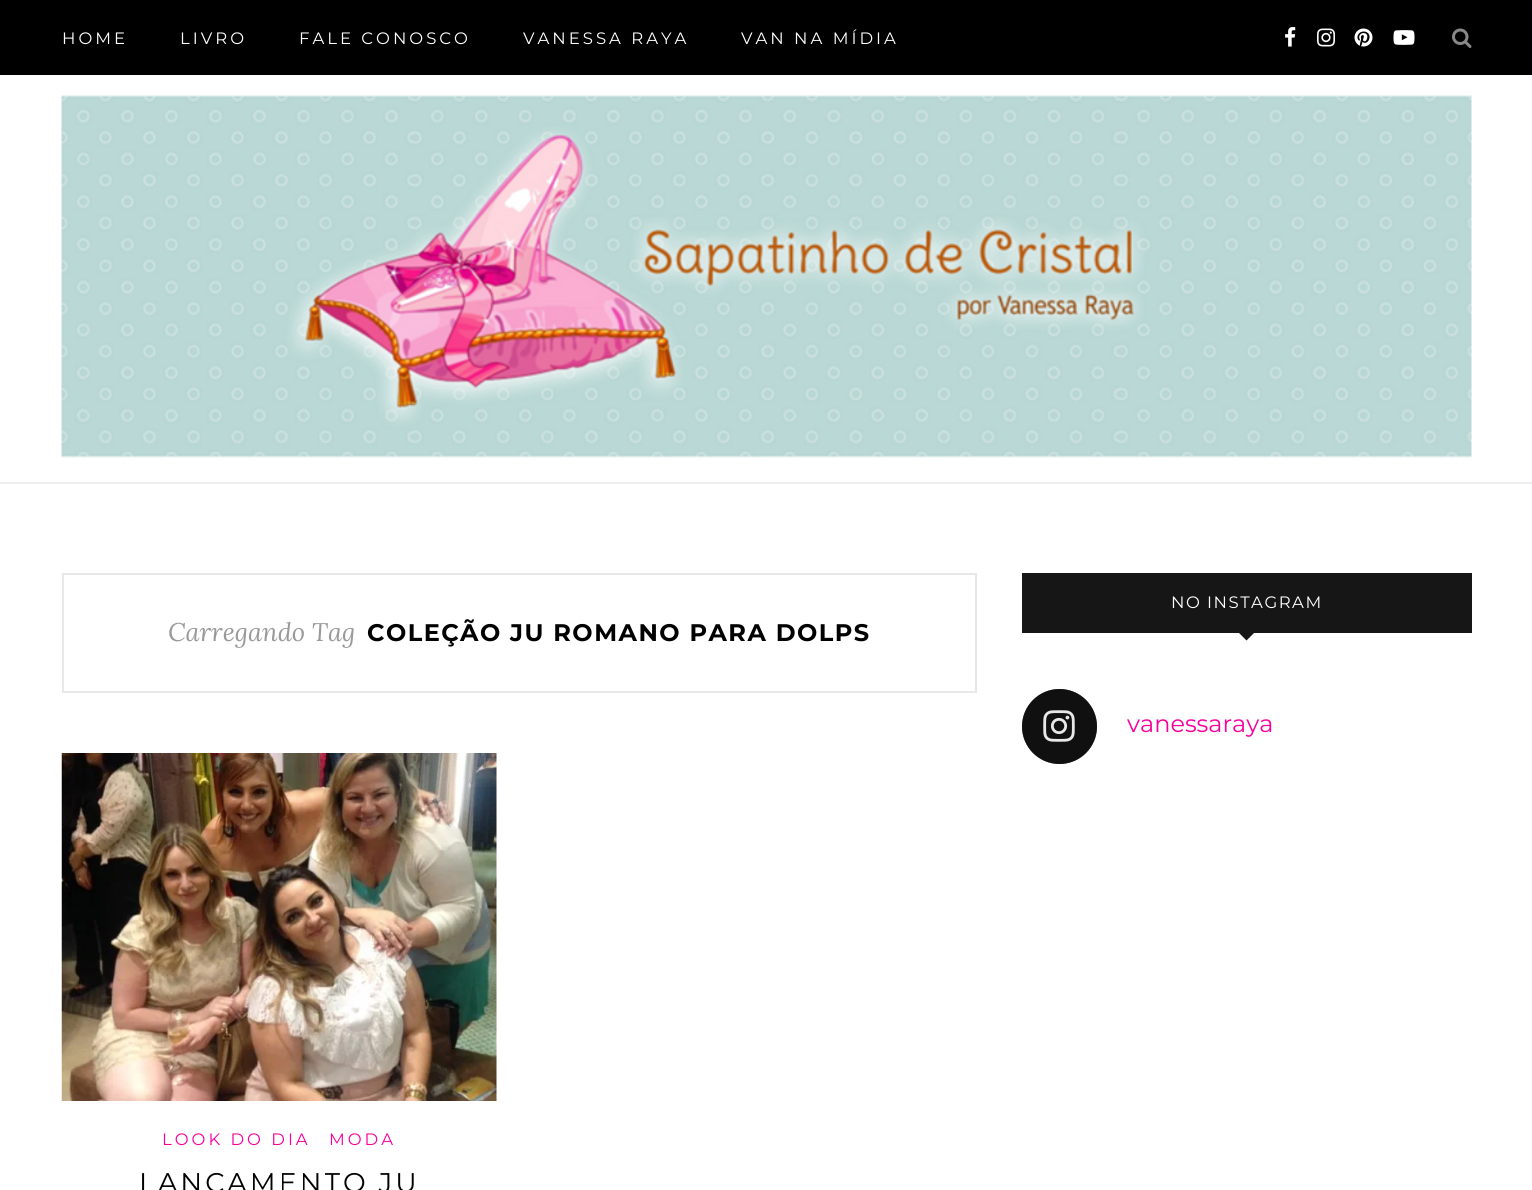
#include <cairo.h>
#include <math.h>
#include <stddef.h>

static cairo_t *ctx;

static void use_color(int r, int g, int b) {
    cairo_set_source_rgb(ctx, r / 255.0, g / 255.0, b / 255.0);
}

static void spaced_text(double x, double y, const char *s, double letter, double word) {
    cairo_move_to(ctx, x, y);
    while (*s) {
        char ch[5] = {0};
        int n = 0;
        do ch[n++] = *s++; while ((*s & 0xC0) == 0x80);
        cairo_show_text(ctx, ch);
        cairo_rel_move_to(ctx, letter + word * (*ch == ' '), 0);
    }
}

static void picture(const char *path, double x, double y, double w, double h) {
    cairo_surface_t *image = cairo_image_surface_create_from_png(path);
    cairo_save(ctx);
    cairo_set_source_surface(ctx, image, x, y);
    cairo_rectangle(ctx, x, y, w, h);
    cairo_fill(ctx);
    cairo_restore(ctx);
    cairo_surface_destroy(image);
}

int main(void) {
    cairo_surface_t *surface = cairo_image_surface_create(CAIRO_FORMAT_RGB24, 1532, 1190);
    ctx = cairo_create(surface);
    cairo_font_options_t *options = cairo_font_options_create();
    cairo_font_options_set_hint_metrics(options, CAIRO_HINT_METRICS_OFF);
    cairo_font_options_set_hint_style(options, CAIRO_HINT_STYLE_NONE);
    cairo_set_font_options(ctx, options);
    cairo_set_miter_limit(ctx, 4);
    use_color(255, 255, 255);
    cairo_paint(ctx);
    use_color(0, 0, 0);
    cairo_rectangle(ctx, 0, 0, 1532, 75);
    cairo_fill(ctx);
    cairo_select_font_face(ctx, "Montserrat", CAIRO_FONT_SLANT_NORMAL, CAIRO_FONT_WEIGHT_NORMAL);
    cairo_set_font_size(ctx, 16.5);
    use_color(255, 255, 255);
    spaced_text(62, 44, "HOME", 3, 0);
    spaced_text(180, 44, "LIVRO", 3, 0);
    spaced_text(299, 44, "FALE CONOSCO", 3, 0);
    spaced_text(523, 44, "VANESSA RAYA", 3, 0);
    spaced_text(741, 44, "VAN NA MÍDIA", 3, 0);
    picture("img1.png", 1285, 27, 11, 20);
    picture("img2.png", 1317, 28, 18, 19);
    picture("img3.png", 1354, 28, 19, 19);
    picture("img4.png", 1393, 30, 22, 15);
    picture("img5.png", 1452, 28, 20, 20);
    use_color(238, 238, 238);
    cairo_rectangle(ctx, 0, 482, 1532, 2);
    cairo_fill(ctx);
    picture("img6.png", 61, 95, 1411, 363);
    cairo_rectangle(ctx, 63, 574, 913, 118);
    use_color(232, 232, 232);
    cairo_stroke(ctx);
    cairo_select_font_face(ctx, "Lora", CAIRO_FONT_SLANT_ITALIC, CAIRO_FONT_WEIGHT_NORMAL);
    cairo_set_font_size(ctx, 25.5);
    use_color(153, 153, 153);
    cairo_move_to(ctx, 168, 641);
    cairo_show_text(ctx, "Carregando Tag");
    cairo_select_font_face(ctx, "Montserrat", CAIRO_FONT_SLANT_NORMAL, CAIRO_FONT_WEIGHT_BOLD);
    cairo_set_font_size(ctx, 24);
    use_color(0, 0, 0);
    spaced_text(367, 641, "COLEÇÃO JU ROMANO PARA DOLPS", 1.5, 0);
    picture("img7.png", 61, 753, 436, 348);
    cairo_select_font_face(ctx, "Montserrat", CAIRO_FONT_SLANT_NORMAL, CAIRO_FONT_WEIGHT_NORMAL);
    cairo_set_font_size(ctx, 16.5);
    use_color(247, 0, 156);
    spaced_text(162, 1145, "LOOK DO DIA", 3, 0);
    spaced_text(329, 1145, "MODA", 3, 0);
    cairo_set_font_size(ctx, 27);
    use_color(0, 0, 0);
    spaced_text(139, 1192, "LANÇAMENTO JU", 3, 0);
    use_color(22, 22, 22);
    cairo_rectangle(ctx, 1022, 573, 450, 60);
    cairo_fill(ctx);
    cairo_set_font_size(ctx, 16.5);
    use_color(255, 255, 255);
    spaced_text(1171, 608, "NO INSTAGRAM", 1.5, 0);
    use_color(22, 22, 22);
    cairo_new_path(ctx);
    cairo_move_to(ctx, 1239, 633);
    cairo_line_to(ctx, 1254, 633);
    cairo_line_to(ctx, 1246.5, 640.5);
    cairo_close_path(ctx);
    cairo_fill(ctx);
    use_color(51, 51, 51);
    cairo_arc(ctx, 1059.5, 726.5, 37.5, 0, 2 * M_PI);
    cairo_fill(ctx);
    cairo_set_source_rgba(ctx, 0, 0, 0, 0.68);
    cairo_arc(ctx, 1059.5, 726.5, 37.5, 0, 2 * M_PI);
    cairo_fill(ctx);
    picture("img8.png", 1043, 710, 32, 32);
    cairo_set_font_size(ctx, 24);
    use_color(247, 0, 156);
    cairo_move_to(ctx, 1127, 732);
    cairo_show_text(ctx, "vanessaraya");
    cairo_surface_write_to_png(surface, "result.png");
    cairo_font_options_destroy(options);
    cairo_destroy(ctx);
    cairo_surface_destroy(surface);
    return 0;
}
